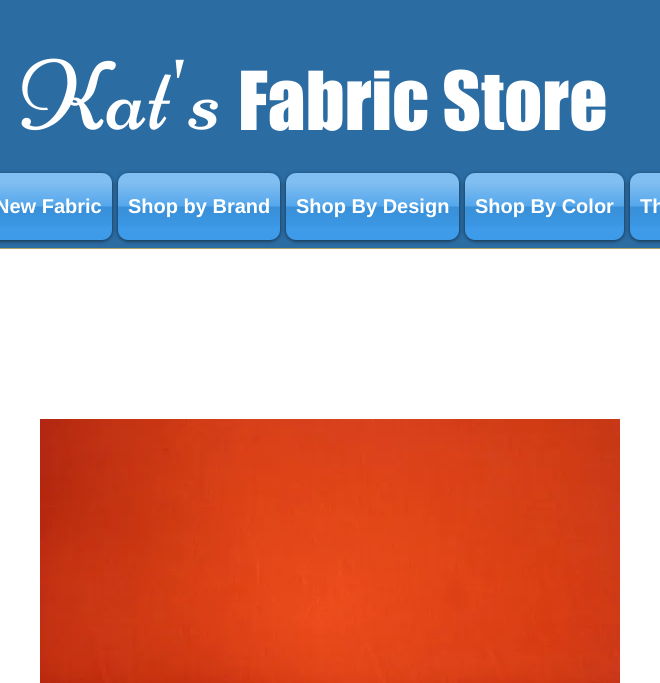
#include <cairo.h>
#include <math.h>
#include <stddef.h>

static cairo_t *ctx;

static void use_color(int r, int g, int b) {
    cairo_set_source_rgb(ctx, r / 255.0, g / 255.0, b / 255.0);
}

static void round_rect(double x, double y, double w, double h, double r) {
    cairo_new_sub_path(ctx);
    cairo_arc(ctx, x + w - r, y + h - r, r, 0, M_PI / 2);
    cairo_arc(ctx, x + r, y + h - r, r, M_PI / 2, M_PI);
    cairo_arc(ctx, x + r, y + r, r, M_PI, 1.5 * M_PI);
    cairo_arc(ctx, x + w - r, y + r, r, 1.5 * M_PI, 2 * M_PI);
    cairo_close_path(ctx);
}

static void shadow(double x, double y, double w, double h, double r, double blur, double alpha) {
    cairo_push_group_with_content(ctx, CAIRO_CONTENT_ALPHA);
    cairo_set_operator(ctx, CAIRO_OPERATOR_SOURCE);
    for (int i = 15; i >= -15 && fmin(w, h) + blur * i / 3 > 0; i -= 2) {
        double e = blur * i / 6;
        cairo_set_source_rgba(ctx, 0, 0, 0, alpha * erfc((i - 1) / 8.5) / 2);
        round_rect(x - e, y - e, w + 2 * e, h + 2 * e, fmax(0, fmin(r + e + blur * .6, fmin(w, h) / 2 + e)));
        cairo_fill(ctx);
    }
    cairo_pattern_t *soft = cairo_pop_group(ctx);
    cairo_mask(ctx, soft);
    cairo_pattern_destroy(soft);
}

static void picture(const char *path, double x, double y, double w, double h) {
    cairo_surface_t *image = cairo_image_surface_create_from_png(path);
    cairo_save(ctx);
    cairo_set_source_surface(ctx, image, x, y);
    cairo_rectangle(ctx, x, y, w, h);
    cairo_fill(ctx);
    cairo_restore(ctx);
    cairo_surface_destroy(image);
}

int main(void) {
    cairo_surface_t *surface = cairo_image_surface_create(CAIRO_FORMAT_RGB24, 660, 683);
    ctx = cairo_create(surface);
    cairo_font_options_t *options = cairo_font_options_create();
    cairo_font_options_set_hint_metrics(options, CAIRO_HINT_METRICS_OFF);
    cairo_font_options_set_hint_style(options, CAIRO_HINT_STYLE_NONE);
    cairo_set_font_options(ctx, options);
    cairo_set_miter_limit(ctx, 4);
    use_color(255, 255, 255);
    cairo_paint(ctx);
    use_color(43, 108, 163);
    cairo_rectangle(ctx, 0, 0, 660, 248);
    cairo_fill(ctx);
    picture("img1.png", 21, 58, 197, 73);
    cairo_select_font_face(ctx, "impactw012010", CAIRO_FONT_SLANT_NORMAL, CAIRO_FONT_WEIGHT_NORMAL);
    cairo_set_font_size(ctx, 75);
    use_color(255, 255, 255);
    cairo_move_to(ctx, 238, 130);
    cairo_show_text(ctx, "Fabric Store");
    use_color(0, 0, 0);
    shadow(-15, 174, 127, 67, 10, 2, 0.6);
    use_color(61, 155, 233);
    round_rect(-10, 173, 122, 67, 10);
    cairo_fill(ctx);
    picture("img2.png", 0, 173, 112, 54);
    cairo_select_font_face(ctx, "Liberation Sans", CAIRO_FONT_SLANT_NORMAL, CAIRO_FONT_WEIGHT_BOLD);
    cairo_set_font_size(ctx, 20);
    use_color(255, 255, 255);
    cairo_move_to(ctx, -5, 213);
    cairo_show_text(ctx, "New Fabric");
    use_color(0, 0, 0);
    shadow(118, 174, 162, 67, 10, 2, 0.6);
    use_color(61, 155, 233);
    round_rect(118, 173, 162, 67, 10);
    cairo_fill(ctx);
    picture("img3.png", 118, 173, 162, 54);
    use_color(255, 255, 255);
    cairo_move_to(ctx, 128, 213);
    cairo_show_text(ctx, "Shop by Brand");
    use_color(0, 0, 0);
    shadow(286, 174, 173, 67, 10, 2, 0.6);
    use_color(61, 155, 233);
    round_rect(286, 173, 173, 67, 10);
    cairo_fill(ctx);
    picture("img4.png", 286, 173, 173, 54);
    use_color(255, 255, 255);
    cairo_move_to(ctx, 296, 213);
    cairo_show_text(ctx, "Shop By Design");
    use_color(0, 0, 0);
    shadow(465, 174, 159, 67, 10, 2, 0.6);
    use_color(61, 155, 233);
    round_rect(465, 173, 159, 67, 10);
    cairo_fill(ctx);
    picture("img5.png", 465, 173, 159, 54);
    use_color(255, 255, 255);
    cairo_move_to(ctx, 475, 213);
    cairo_show_text(ctx, "Shop By Color");
    use_color(0, 0, 0);
    shadow(630, 174, 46, 67, 10, 2, 0.6);
    use_color(61, 155, 233);
    round_rect(630, 173, 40, 67, 10);
    cairo_fill(ctx);
    picture("img6.png", 630, 173, 30, 54);
    use_color(255, 255, 255);
    cairo_move_to(ctx, 640, 213);
    cairo_show_text(ctx, "Th");
    use_color(176, 161, 113);
    cairo_rectangle(ctx, 0, 248, 660, 1);
    cairo_fill(ctx);
    picture("img7.png", 40, 419, 580, 264);
    cairo_surface_write_to_png(surface, "result.png");
    cairo_font_options_destroy(options);
    cairo_destroy(ctx);
    cairo_surface_destroy(surface);
    return 0;
}
